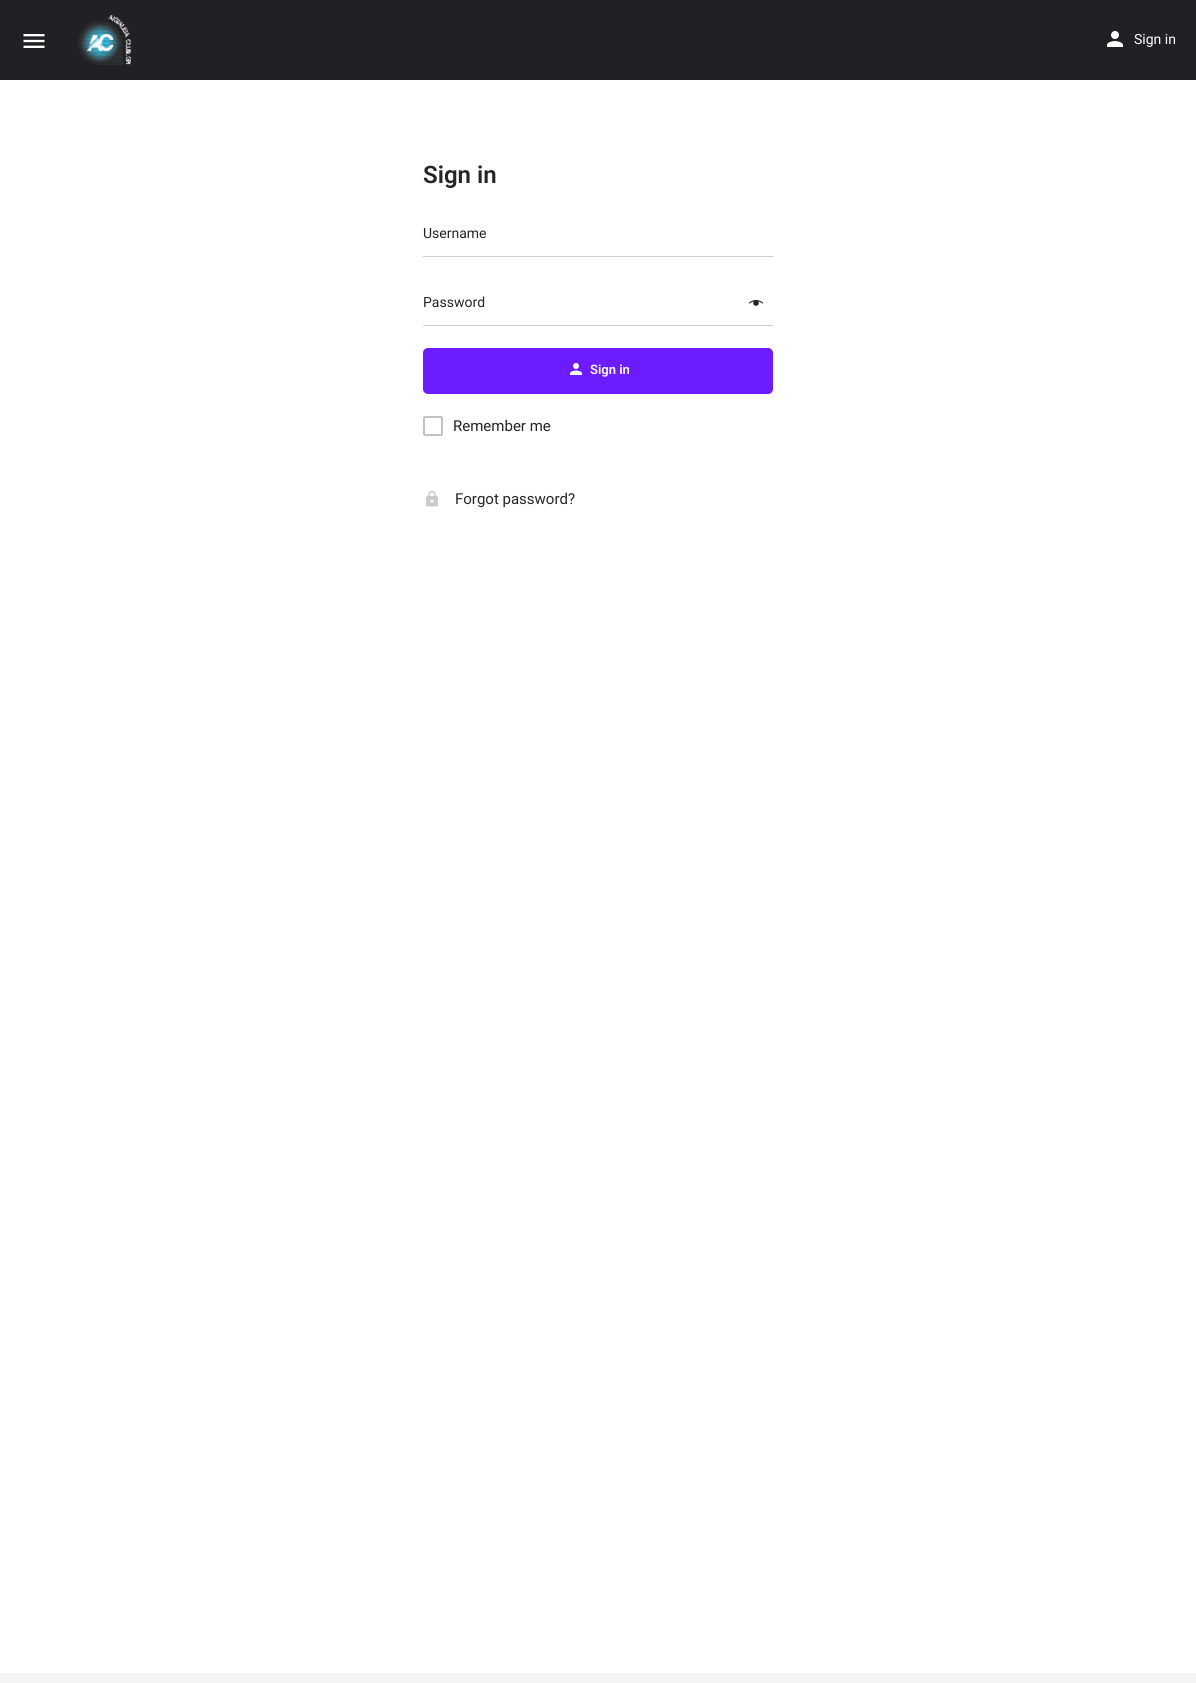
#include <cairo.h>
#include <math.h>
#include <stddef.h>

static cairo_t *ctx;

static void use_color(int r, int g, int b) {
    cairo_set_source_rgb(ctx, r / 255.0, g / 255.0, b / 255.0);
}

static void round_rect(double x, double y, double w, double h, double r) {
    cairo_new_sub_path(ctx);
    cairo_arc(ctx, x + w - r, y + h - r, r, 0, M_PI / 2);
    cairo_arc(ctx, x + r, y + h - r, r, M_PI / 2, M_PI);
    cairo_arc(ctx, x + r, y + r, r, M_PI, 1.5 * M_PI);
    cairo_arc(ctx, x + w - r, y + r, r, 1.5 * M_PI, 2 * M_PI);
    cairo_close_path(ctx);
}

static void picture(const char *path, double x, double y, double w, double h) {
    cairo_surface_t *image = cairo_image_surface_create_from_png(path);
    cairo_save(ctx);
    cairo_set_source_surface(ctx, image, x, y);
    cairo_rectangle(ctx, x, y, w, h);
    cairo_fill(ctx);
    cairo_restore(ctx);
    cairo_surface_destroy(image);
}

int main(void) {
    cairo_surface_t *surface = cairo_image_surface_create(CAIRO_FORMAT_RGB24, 1196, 1683);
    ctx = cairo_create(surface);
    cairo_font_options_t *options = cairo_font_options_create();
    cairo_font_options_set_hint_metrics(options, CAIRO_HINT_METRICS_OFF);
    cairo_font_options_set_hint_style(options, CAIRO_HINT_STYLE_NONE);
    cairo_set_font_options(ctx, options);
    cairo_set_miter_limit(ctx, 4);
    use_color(244, 244, 244);
    cairo_paint(ctx);
    use_color(32, 33, 37);
    cairo_rectangle(ctx, 0, 0, 1196, 80);
    cairo_fill(ctx);
    picture("img1.png", 23, 34, 22, 14);
    picture("img2.png", 78, 15, 53, 50);
    picture("img3.png", 1107, 31, 16, 16);
    cairo_select_font_face(ctx, "Roboto", CAIRO_FONT_SLANT_NORMAL, CAIRO_FONT_WEIGHT_NORMAL);
    cairo_set_font_size(ctx, 14);
    use_color(255, 255, 255);
    cairo_move_to(ctx, 1134, 44);
    cairo_show_text(ctx, "Sign in");
    cairo_rectangle(ctx, 0, 80, 1196, 1593);
    cairo_fill(ctx);
    cairo_select_font_face(ctx, "Roboto SemiBold", CAIRO_FONT_SLANT_NORMAL, CAIRO_FONT_WEIGHT_NORMAL);
    cairo_set_font_size(ctx, 24);
    use_color(36, 36, 41);
    cairo_move_to(ctx, 423, 183);
    cairo_show_text(ctx, "Sign in");
    cairo_select_font_face(ctx, "Roboto", CAIRO_FONT_SLANT_NORMAL, CAIRO_FONT_WEIGHT_NORMAL);
    cairo_set_font_size(ctx, 14);
    cairo_move_to(ctx, 423, 238);
    cairo_show_text(ctx, "Username");
    use_color(204, 204, 204);
    cairo_rectangle(ctx, 423, 256, 350, 1);
    cairo_fill(ctx);
    use_color(36, 36, 41);
    cairo_move_to(ctx, 423, 307);
    cairo_show_text(ctx, "Password");
    use_color(204, 204, 204);
    cairo_rectangle(ctx, 423, 325, 350, 1);
    cairo_fill(ctx);
    picture("img4.png", 749, 299, 14, 7);
    use_color(108, 28, 255);
    round_rect(423, 348, 350, 46, 5);
    cairo_fill(ctx);
    picture("img5.png", 570, 363, 12, 12);
    cairo_select_font_face(ctx, "Roboto SemiBold", CAIRO_FONT_SLANT_NORMAL, CAIRO_FONT_WEIGHT_NORMAL);
    cairo_set_font_size(ctx, 13);
    use_color(255, 255, 255);
    cairo_move_to(ctx, 590, 374);
    cairo_show_text(ctx, "Sign in");
    round_rect(424, 417, 18, 18, 1);
    use_color(194, 194, 194);
    cairo_stroke(ctx);
    cairo_select_font_face(ctx, "Roboto", CAIRO_FONT_SLANT_NORMAL, CAIRO_FONT_WEIGHT_NORMAL);
    cairo_set_font_size(ctx, 15);
    use_color(36, 36, 41);
    cairo_move_to(ctx, 453, 431);
    cairo_show_text(ctx, "Remember me");
    picture("img6.png", 426, 490, 12, 17);
    cairo_move_to(ctx, 455, 504);
    cairo_show_text(ctx, "Forgot password?");
    cairo_surface_write_to_png(surface, "result.png");
    cairo_font_options_destroy(options);
    cairo_destroy(ctx);
    cairo_surface_destroy(surface);
    return 0;
}
